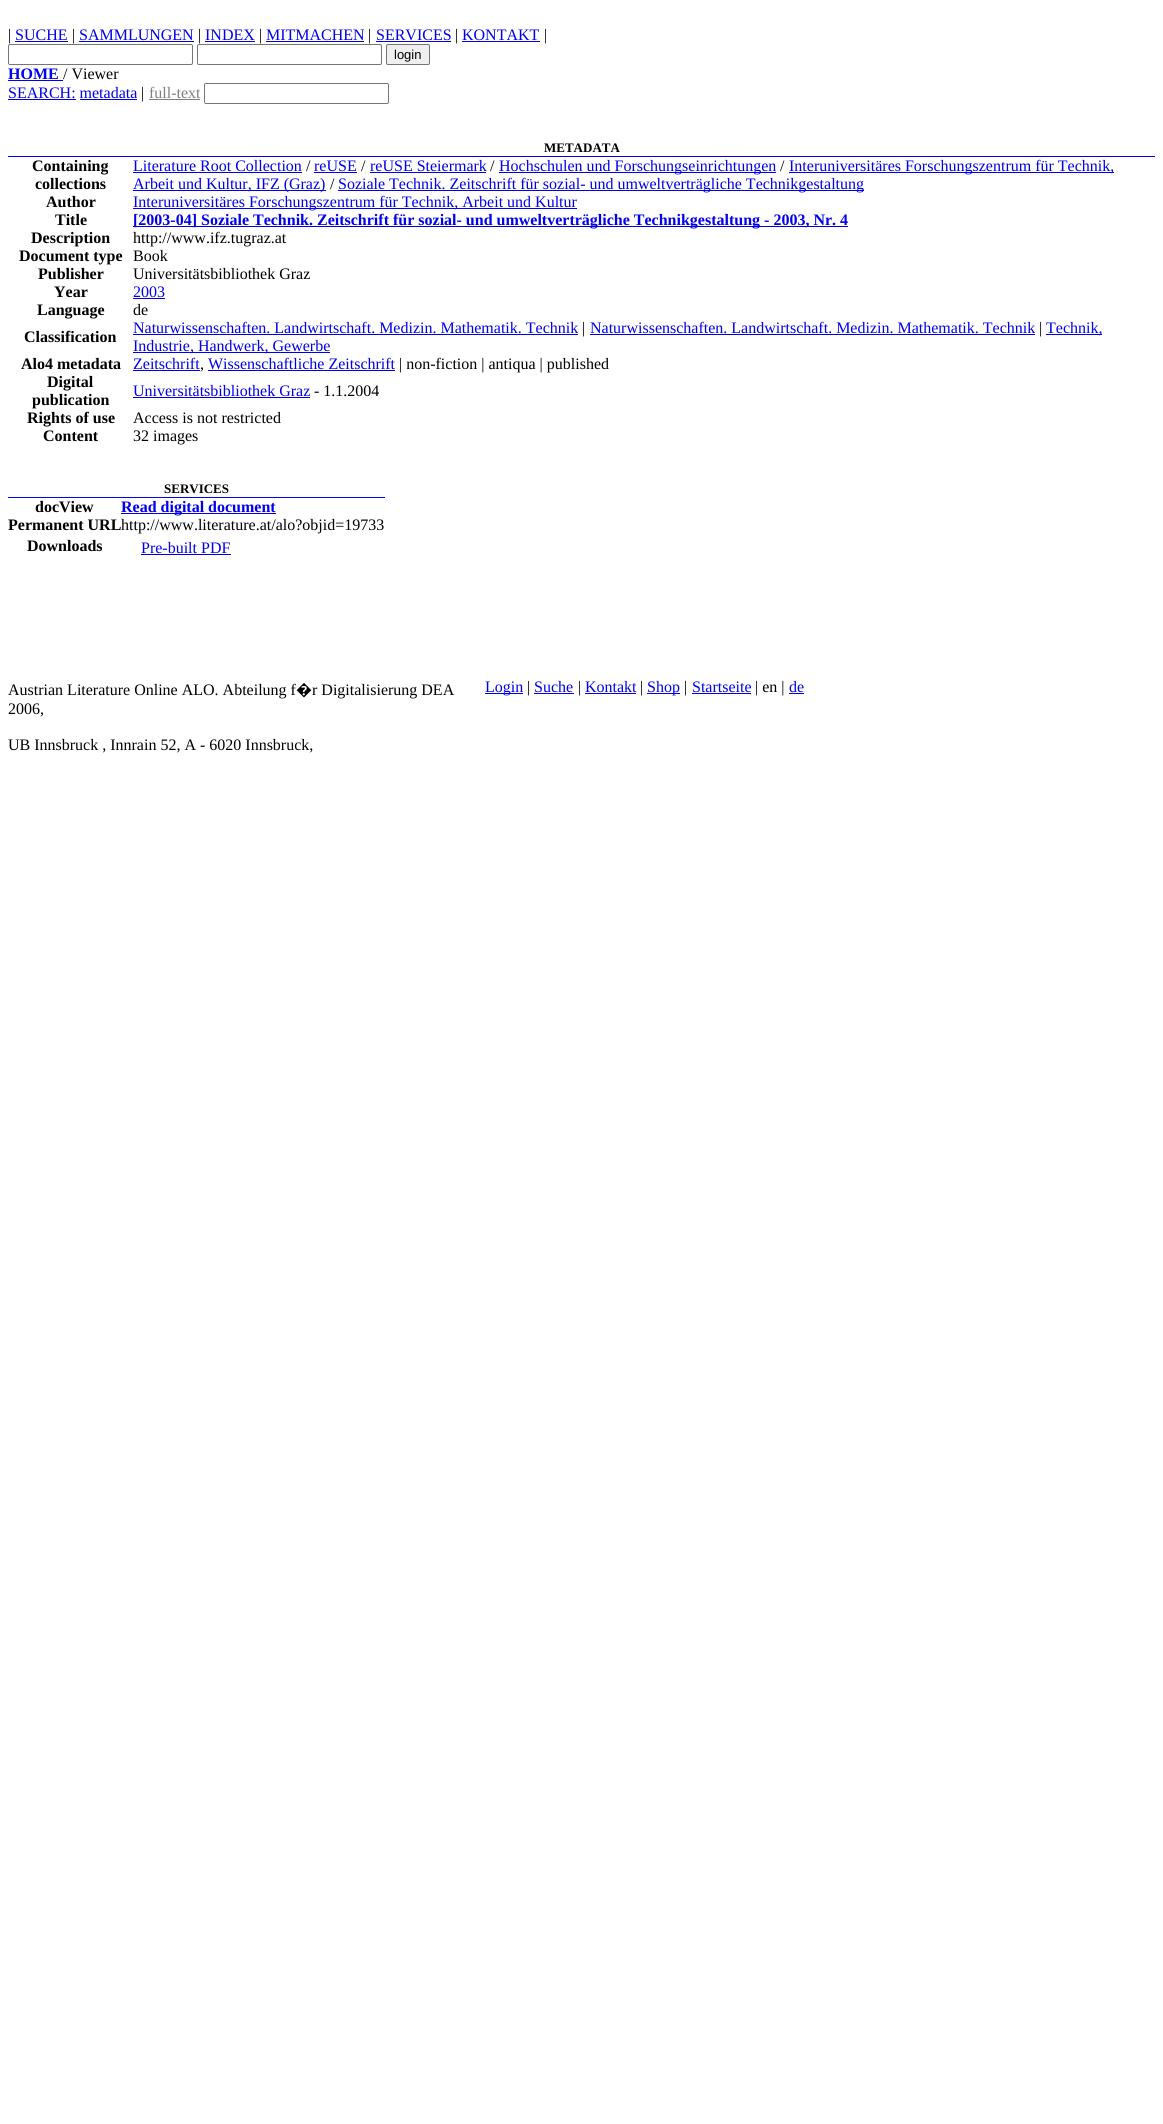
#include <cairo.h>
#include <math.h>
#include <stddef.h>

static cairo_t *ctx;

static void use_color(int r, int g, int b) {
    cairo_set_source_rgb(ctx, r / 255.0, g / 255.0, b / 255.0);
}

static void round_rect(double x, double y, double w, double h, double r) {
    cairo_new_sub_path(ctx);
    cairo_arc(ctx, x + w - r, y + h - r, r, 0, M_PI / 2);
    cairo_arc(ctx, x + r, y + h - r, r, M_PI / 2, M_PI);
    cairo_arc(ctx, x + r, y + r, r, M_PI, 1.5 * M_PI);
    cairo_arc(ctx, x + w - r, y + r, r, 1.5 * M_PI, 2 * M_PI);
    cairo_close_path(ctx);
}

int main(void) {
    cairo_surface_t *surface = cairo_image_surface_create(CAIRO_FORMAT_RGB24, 1163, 2124);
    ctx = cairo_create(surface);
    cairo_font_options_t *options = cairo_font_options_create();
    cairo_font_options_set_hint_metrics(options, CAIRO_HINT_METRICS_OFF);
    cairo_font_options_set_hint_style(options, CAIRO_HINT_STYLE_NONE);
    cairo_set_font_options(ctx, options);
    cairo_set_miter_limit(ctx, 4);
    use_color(255, 255, 255);
    cairo_paint(ctx);
    cairo_select_font_face(ctx, "Liberation Serif", CAIRO_FONT_SLANT_NORMAL, CAIRO_FONT_WEIGHT_NORMAL);
    cairo_set_font_size(ctx, 16);
    use_color(0, 0, 0);
    cairo_move_to(ctx, 8, 40);
    cairo_show_text(ctx, "|");
    use_color(0, 0, 238);
    cairo_move_to(ctx, 15, 40);
    cairo_show_text(ctx, "SUCHE");
    cairo_rectangle(ctx, 15, 41, 53, 1);
    cairo_fill(ctx);
    use_color(0, 0, 0);
    cairo_move_to(ctx, 72, 40);
    cairo_show_text(ctx, "|");
    use_color(0, 0, 238);
    cairo_move_to(ctx, 79, 40);
    cairo_show_text(ctx, "SAMMLUNGEN");
    cairo_rectangle(ctx, 79, 41, 115, 1);
    cairo_fill(ctx);
    use_color(0, 0, 0);
    cairo_move_to(ctx, 198, 40);
    cairo_show_text(ctx, "|");
    use_color(0, 0, 238);
    cairo_move_to(ctx, 205, 40);
    cairo_show_text(ctx, "INDEX");
    cairo_rectangle(ctx, 205, 41, 50, 1);
    cairo_fill(ctx);
    use_color(0, 0, 0);
    cairo_move_to(ctx, 259, 40);
    cairo_show_text(ctx, "|");
    use_color(0, 0, 238);
    cairo_move_to(ctx, 266, 40);
    cairo_show_text(ctx, "MITMACHEN");
    cairo_rectangle(ctx, 266, 41, 98, 1);
    cairo_fill(ctx);
    use_color(0, 0, 0);
    cairo_move_to(ctx, 368, 40);
    cairo_show_text(ctx, "|");
    use_color(0, 0, 238);
    cairo_move_to(ctx, 376, 40);
    cairo_show_text(ctx, "SERVICES");
    cairo_rectangle(ctx, 376, 41, 75, 1);
    cairo_fill(ctx);
    use_color(0, 0, 0);
    cairo_move_to(ctx, 455, 40);
    cairo_show_text(ctx, "|");
    use_color(0, 0, 238);
    cairo_move_to(ctx, 462, 40);
    cairo_show_text(ctx, "KONTAKT");
    cairo_rectangle(ctx, 462, 41, 78, 1);
    cairo_fill(ctx);
    use_color(0, 0, 0);
    cairo_move_to(ctx, 544, 40);
    cairo_show_text(ctx, "|");
    round_rect(8.5, 44.5, 184, 20, 1.5);
    use_color(118, 118, 118);
    cairo_set_line_width(ctx, 1);
    cairo_stroke(ctx);
    round_rect(197.5, 44.5, 184, 20, 1.5);
    cairo_stroke(ctx);
    use_color(239, 239, 239);
    round_rect(386.5, 44.5, 43, 20, 1.5);
    cairo_fill_preserve(ctx);
    use_color(118, 118, 118);
    cairo_stroke(ctx);
    cairo_select_font_face(ctx, "Liberation Sans", CAIRO_FONT_SLANT_NORMAL, CAIRO_FONT_WEIGHT_NORMAL);
    cairo_set_font_size(ctx, 13);
    use_color(0, 0, 0);
    cairo_move_to(ctx, 394, 59);
    cairo_show_text(ctx, "login");
    cairo_select_font_face(ctx, "Liberation Serif", CAIRO_FONT_SLANT_NORMAL, CAIRO_FONT_WEIGHT_BOLD);
    cairo_set_font_size(ctx, 16);
    use_color(0, 0, 238);
    cairo_move_to(ctx, 8, 79);
    cairo_show_text(ctx, "HOME");
    cairo_rectangle(ctx, 8, 80, 55, 1);
    cairo_fill(ctx);
    cairo_select_font_face(ctx, "Liberation Serif", CAIRO_FONT_SLANT_NORMAL, CAIRO_FONT_WEIGHT_NORMAL);
    use_color(0, 0, 0);
    cairo_move_to(ctx, 63, 79);
    cairo_show_text(ctx, "/ Viewer");
    use_color(0, 0, 238);
    cairo_move_to(ctx, 8, 98);
    cairo_show_text(ctx, "SEARCH: metadata");
    cairo_rectangle(ctx, 8, 99, 68, 1);
    cairo_fill(ctx);
    use_color(0, 0, 0);
    cairo_move_to(ctx, 141, 98);
    cairo_show_text(ctx, "|");
    use_color(128, 128, 128);
    cairo_move_to(ctx, 149, 98);
    cairo_show_text(ctx, "full-text");
    cairo_rectangle(ctx, 149, 99, 51, 1);
    cairo_fill(ctx);
    round_rect(204.5, 83.5, 184, 20, 1.5);
    use_color(118, 118, 118);
    cairo_stroke(ctx);
    use_color(0, 0, 238);
    cairo_rectangle(ctx, 80, 99, 57, 1);
    cairo_fill(ctx);
    use_color(0, 0, 255);
    cairo_rectangle(ctx, 8, 156, 1147, 1);
    cairo_fill(ctx);
    cairo_select_font_face(ctx, "Liberation Serif", CAIRO_FONT_SLANT_NORMAL, CAIRO_FONT_WEIGHT_BOLD);
    cairo_set_font_size(ctx, 13);
    use_color(0, 0, 0);
    cairo_move_to(ctx, 544, 152);
    cairo_show_text(ctx, "METADATA");
    cairo_set_font_size(ctx, 16);
    cairo_move_to(ctx, 32, 171);
    cairo_show_text(ctx, "Containing");
    cairo_move_to(ctx, 35, 189);
    cairo_show_text(ctx, "collections");
    cairo_select_font_face(ctx, "Liberation Serif", CAIRO_FONT_SLANT_NORMAL, CAIRO_FONT_WEIGHT_NORMAL);
    use_color(0, 0, 238);
    cairo_move_to(ctx, 133, 171);
    cairo_show_text(ctx, "Literature Root Collection");
    cairo_rectangle(ctx, 133, 172, 169, 1);
    cairo_fill(ctx);
    use_color(0, 0, 0);
    cairo_move_to(ctx, 306, 171);
    cairo_show_text(ctx, "/");
    use_color(0, 0, 238);
    cairo_move_to(ctx, 314, 171);
    cairo_show_text(ctx, "reUSE");
    cairo_rectangle(ctx, 314, 172, 43, 1);
    cairo_fill(ctx);
    use_color(0, 0, 0);
    cairo_move_to(ctx, 361, 171);
    cairo_show_text(ctx, "/");
    use_color(0, 0, 238);
    cairo_move_to(ctx, 370, 171);
    cairo_show_text(ctx, "reUSE Steiermark");
    cairo_rectangle(ctx, 370, 172, 116, 1);
    cairo_fill(ctx);
    use_color(0, 0, 0);
    cairo_move_to(ctx, 490, 171);
    cairo_show_text(ctx, "/");
    use_color(0, 0, 238);
    cairo_rectangle(ctx, 499, 172, 277, 1);
    cairo_fill(ctx);
    cairo_move_to(ctx, 499, 171);
    cairo_show_text(ctx, "Hochschulen und Forschungseinrichtungen");
    use_color(0, 0, 0);
    cairo_move_to(ctx, 780, 171);
    cairo_show_text(ctx, "/");
    use_color(0, 0, 238);
    cairo_rectangle(ctx, 789, 172, 325, 1);
    cairo_fill(ctx);
    cairo_move_to(ctx, 789, 171);
    cairo_show_text(ctx, "Interuniversitäres Forschungszentrum für Technik,");
    cairo_rectangle(ctx, 133, 190, 193, 1);
    cairo_fill(ctx);
    cairo_move_to(ctx, 133, 189);
    cairo_show_text(ctx, "Arbeit und Kultur, IFZ (Graz)");
    use_color(0, 0, 0);
    cairo_move_to(ctx, 330, 189);
    cairo_show_text(ctx, "/");
    use_color(0, 0, 238);
    cairo_rectangle(ctx, 338, 190, 526, 1);
    cairo_fill(ctx);
    cairo_move_to(ctx, 338, 189);
    cairo_show_text(ctx, "Soziale Technik. Zeitschrift für sozial- und umweltverträgliche Technikgestaltung");
    cairo_select_font_face(ctx, "Liberation Serif", CAIRO_FONT_SLANT_NORMAL, CAIRO_FONT_WEIGHT_BOLD);
    use_color(0, 0, 0);
    cairo_move_to(ctx, 46, 207);
    cairo_show_text(ctx, "Author");
    use_color(0, 0, 238);
    cairo_rectangle(ctx, 133, 208, 444, 1);
    cairo_fill(ctx);
    cairo_select_font_face(ctx, "Liberation Serif", CAIRO_FONT_SLANT_NORMAL, CAIRO_FONT_WEIGHT_NORMAL);
    cairo_move_to(ctx, 133, 207);
    cairo_show_text(ctx, "Interuniversitäres Forschungszentrum für Technik, Arbeit und Kultur");
    cairo_select_font_face(ctx, "Liberation Serif", CAIRO_FONT_SLANT_NORMAL, CAIRO_FONT_WEIGHT_BOLD);
    use_color(0, 0, 0);
    cairo_move_to(ctx, 55, 225);
    cairo_show_text(ctx, "Title");
    use_color(0, 0, 238);
    cairo_rectangle(ctx, 133, 226, 715, 1);
    cairo_fill(ctx);
    cairo_move_to(ctx, 133, 225);
    cairo_show_text(ctx, "[2003-04] Soziale Technik. Zeitschrift für sozial- und umweltverträgliche Technikgestaltung - 2003, Nr. 4");
    use_color(0, 0, 0);
    cairo_move_to(ctx, 31, 243);
    cairo_show_text(ctx, "Description");
    cairo_select_font_face(ctx, "Liberation Serif", CAIRO_FONT_SLANT_NORMAL, CAIRO_FONT_WEIGHT_NORMAL);
    cairo_move_to(ctx, 133, 243);
    cairo_show_text(ctx, "http://www.ifz.tugraz.at");
    cairo_select_font_face(ctx, "Liberation Serif", CAIRO_FONT_SLANT_NORMAL, CAIRO_FONT_WEIGHT_BOLD);
    cairo_move_to(ctx, 19, 261);
    cairo_show_text(ctx, "Document type");
    cairo_select_font_face(ctx, "Liberation Serif", CAIRO_FONT_SLANT_NORMAL, CAIRO_FONT_WEIGHT_NORMAL);
    cairo_move_to(ctx, 133, 261);
    cairo_show_text(ctx, "Book");
    cairo_select_font_face(ctx, "Liberation Serif", CAIRO_FONT_SLANT_NORMAL, CAIRO_FONT_WEIGHT_BOLD);
    cairo_move_to(ctx, 38, 279);
    cairo_show_text(ctx, "Publisher");
    cairo_select_font_face(ctx, "Liberation Serif", CAIRO_FONT_SLANT_NORMAL, CAIRO_FONT_WEIGHT_NORMAL);
    cairo_move_to(ctx, 133, 279);
    cairo_show_text(ctx, "Universitätsbibliothek Graz");
    cairo_select_font_face(ctx, "Liberation Serif", CAIRO_FONT_SLANT_NORMAL, CAIRO_FONT_WEIGHT_BOLD);
    cairo_move_to(ctx, 54, 297);
    cairo_show_text(ctx, "Year");
    cairo_select_font_face(ctx, "Liberation Serif", CAIRO_FONT_SLANT_NORMAL, CAIRO_FONT_WEIGHT_NORMAL);
    use_color(0, 0, 238);
    cairo_move_to(ctx, 133, 297);
    cairo_show_text(ctx, "2003");
    cairo_rectangle(ctx, 133, 298, 32, 1);
    cairo_fill(ctx);
    cairo_select_font_face(ctx, "Liberation Serif", CAIRO_FONT_SLANT_NORMAL, CAIRO_FONT_WEIGHT_BOLD);
    use_color(0, 0, 0);
    cairo_move_to(ctx, 37, 315);
    cairo_show_text(ctx, "Language");
    cairo_select_font_face(ctx, "Liberation Serif", CAIRO_FONT_SLANT_NORMAL, CAIRO_FONT_WEIGHT_NORMAL);
    cairo_move_to(ctx, 133, 315);
    cairo_show_text(ctx, "de");
    cairo_select_font_face(ctx, "Liberation Serif", CAIRO_FONT_SLANT_NORMAL, CAIRO_FONT_WEIGHT_BOLD);
    cairo_move_to(ctx, 24, 342);
    cairo_show_text(ctx, "Classification");
    cairo_select_font_face(ctx, "Liberation Serif", CAIRO_FONT_SLANT_NORMAL, CAIRO_FONT_WEIGHT_NORMAL);
    use_color(0, 0, 238);
    cairo_move_to(ctx, 133, 333);
    cairo_show_text(ctx, "Naturwissenschaften. Landwirtschaft. Medizin. Mathematik. Technik");
    cairo_rectangle(ctx, 133, 334, 445, 1);
    cairo_fill(ctx);
    use_color(0, 0, 0);
    cairo_move_to(ctx, 582, 333);
    cairo_show_text(ctx, "|");
    use_color(0, 0, 238);
    cairo_move_to(ctx, 590, 333);
    cairo_show_text(ctx, "Naturwissenschaften. Landwirtschaft. Medizin. Mathematik. Technik");
    cairo_rectangle(ctx, 590, 334, 445, 1);
    cairo_fill(ctx);
    use_color(0, 0, 0);
    cairo_move_to(ctx, 1039, 333);
    cairo_show_text(ctx, "|");
    use_color(0, 0, 238);
    cairo_rectangle(ctx, 1046, 334, 56, 1);
    cairo_fill(ctx);
    cairo_move_to(ctx, 1046, 333);
    cairo_show_text(ctx, "Technik,");
    cairo_rectangle(ctx, 133, 352, 197, 1);
    cairo_fill(ctx);
    cairo_move_to(ctx, 133, 351);
    cairo_show_text(ctx, "Industrie, Handwerk, Gewerbe");
    cairo_select_font_face(ctx, "Liberation Serif", CAIRO_FONT_SLANT_NORMAL, CAIRO_FONT_WEIGHT_BOLD);
    use_color(0, 0, 0);
    cairo_move_to(ctx, 21, 369);
    cairo_show_text(ctx, "Alo4 metadata");
    cairo_select_font_face(ctx, "Liberation Serif", CAIRO_FONT_SLANT_NORMAL, CAIRO_FONT_WEIGHT_NORMAL);
    use_color(0, 0, 238);
    cairo_move_to(ctx, 133, 369);
    cairo_show_text(ctx, "Zeitschrift");
    cairo_rectangle(ctx, 133, 370, 67, 1);
    cairo_fill(ctx);
    use_color(0, 0, 0);
    cairo_move_to(ctx, 200, 369);
    cairo_show_text(ctx, ",");
    use_color(0, 0, 238);
    cairo_move_to(ctx, 208, 369);
    cairo_show_text(ctx, "Wissenschaftliche Zeitschrift");
    cairo_rectangle(ctx, 208, 370, 187, 1);
    cairo_fill(ctx);
    use_color(0, 0, 0);
    cairo_move_to(ctx, 399, 369);
    cairo_show_text(ctx, "| non-fiction | antiqua | published");
    cairo_select_font_face(ctx, "Liberation Serif", CAIRO_FONT_SLANT_NORMAL, CAIRO_FONT_WEIGHT_BOLD);
    cairo_move_to(ctx, 47, 387);
    cairo_show_text(ctx, "Digital");
    cairo_move_to(ctx, 32, 405);
    cairo_show_text(ctx, "publication");
    cairo_select_font_face(ctx, "Liberation Serif", CAIRO_FONT_SLANT_NORMAL, CAIRO_FONT_WEIGHT_NORMAL);
    use_color(0, 0, 238);
    cairo_move_to(ctx, 133, 396);
    cairo_show_text(ctx, "Universitätsbibliothek Graz");
    cairo_rectangle(ctx, 133, 397, 177, 1);
    cairo_fill(ctx);
    use_color(0, 0, 0);
    cairo_move_to(ctx, 314, 396);
    cairo_show_text(ctx, "- 1.1.2004");
    cairo_select_font_face(ctx, "Liberation Serif", CAIRO_FONT_SLANT_NORMAL, CAIRO_FONT_WEIGHT_BOLD);
    cairo_move_to(ctx, 27, 423);
    cairo_show_text(ctx, "Rights of use");
    cairo_select_font_face(ctx, "Liberation Serif", CAIRO_FONT_SLANT_NORMAL, CAIRO_FONT_WEIGHT_NORMAL);
    cairo_move_to(ctx, 133, 423);
    cairo_show_text(ctx, "Access is not restricted");
    cairo_select_font_face(ctx, "Liberation Serif", CAIRO_FONT_SLANT_NORMAL, CAIRO_FONT_WEIGHT_BOLD);
    cairo_move_to(ctx, 43, 441);
    cairo_show_text(ctx, "Content");
    cairo_select_font_face(ctx, "Liberation Serif", CAIRO_FONT_SLANT_NORMAL, CAIRO_FONT_WEIGHT_NORMAL);
    cairo_move_to(ctx, 133, 441);
    cairo_show_text(ctx, "32 images");
    use_color(0, 0, 255);
    cairo_rectangle(ctx, 8, 497, 377, 1);
    cairo_fill(ctx);
    cairo_select_font_face(ctx, "Liberation Serif", CAIRO_FONT_SLANT_NORMAL, CAIRO_FONT_WEIGHT_BOLD);
    cairo_set_font_size(ctx, 13);
    use_color(0, 0, 0);
    cairo_move_to(ctx, 164, 493);
    cairo_show_text(ctx, "SERVICES");
    cairo_set_font_size(ctx, 16);
    cairo_move_to(ctx, 35, 512);
    cairo_show_text(ctx, "docView");
    use_color(0, 0, 238);
    cairo_rectangle(ctx, 121, 513, 155, 1);
    cairo_fill(ctx);
    cairo_move_to(ctx, 121, 512);
    cairo_show_text(ctx, "Read digital document");
    use_color(0, 0, 0);
    cairo_move_to(ctx, 8, 530);
    cairo_show_text(ctx, "Permanent URL");
    cairo_select_font_face(ctx, "Liberation Serif", CAIRO_FONT_SLANT_NORMAL, CAIRO_FONT_WEIGHT_NORMAL);
    cairo_move_to(ctx, 121, 530);
    cairo_show_text(ctx, "http://www.literature.at/alo?objid=19733");
    cairo_select_font_face(ctx, "Liberation Serif", CAIRO_FONT_SLANT_NORMAL, CAIRO_FONT_WEIGHT_BOLD);
    cairo_move_to(ctx, 27, 551);
    cairo_show_text(ctx, "Downloads");
    cairo_select_font_face(ctx, "Liberation Serif", CAIRO_FONT_SLANT_NORMAL, CAIRO_FONT_WEIGHT_NORMAL);
    use_color(0, 0, 238);
    cairo_move_to(ctx, 141, 553);
    cairo_show_text(ctx, "Pre-built PDF");
    cairo_rectangle(ctx, 141, 554, 90, 1);
    cairo_fill(ctx);
    use_color(0, 0, 0);
    cairo_move_to(ctx, 8, 695);
    cairo_show_text(ctx, "Austrian Literature Online ALO. Abteilung f");
    cairo_select_font_face(ctx, "Noto Sans", CAIRO_FONT_SLANT_NORMAL, CAIRO_FONT_WEIGHT_NORMAL);
    cairo_move_to(ctx, 296, 695);
    cairo_show_text(ctx, "�");
    cairo_select_font_face(ctx, "Liberation Serif", CAIRO_FONT_SLANT_NORMAL, CAIRO_FONT_WEIGHT_NORMAL);
    cairo_move_to(ctx, 312, 695);
    cairo_show_text(ctx, "r Digitalisierung DEA");
    cairo_move_to(ctx, 8, 714);
    cairo_show_text(ctx, "2006,");
    cairo_move_to(ctx, 8, 750);
    cairo_show_text(ctx, "UB Innsbruck , Innrain 52, A - 6020 Innsbruck,");
    use_color(0, 0, 238);
    cairo_rectangle(ctx, 485, 693, 38, 1);
    cairo_fill(ctx);
    cairo_move_to(ctx, 485, 692);
    cairo_show_text(ctx, "Login");
    use_color(0, 0, 0);
    cairo_move_to(ctx, 527, 692);
    cairo_show_text(ctx, "|");
    use_color(0, 0, 238);
    cairo_move_to(ctx, 534, 692);
    cairo_show_text(ctx, "Suche");
    cairo_rectangle(ctx, 534, 693, 40, 1);
    cairo_fill(ctx);
    use_color(0, 0, 0);
    cairo_move_to(ctx, 578, 692);
    cairo_show_text(ctx, "|");
    use_color(0, 0, 238);
    cairo_move_to(ctx, 585, 692);
    cairo_show_text(ctx, "Kontakt");
    cairo_rectangle(ctx, 585, 693, 51, 1);
    cairo_fill(ctx);
    use_color(0, 0, 0);
    cairo_move_to(ctx, 640, 692);
    cairo_show_text(ctx, "|");
    use_color(0, 0, 238);
    cairo_rectangle(ctx, 647, 693, 33, 1);
    cairo_fill(ctx);
    cairo_move_to(ctx, 647, 692);
    cairo_show_text(ctx, "Shop");
    use_color(0, 0, 0);
    cairo_move_to(ctx, 684, 692);
    cairo_show_text(ctx, "|");
    use_color(0, 0, 238);
    cairo_move_to(ctx, 692, 692);
    cairo_show_text(ctx, "Startseite");
    cairo_rectangle(ctx, 692, 693, 59, 1);
    cairo_fill(ctx);
    use_color(0, 0, 0);
    cairo_move_to(ctx, 755, 692);
    cairo_show_text(ctx, "| en |");
    use_color(0, 0, 238);
    cairo_move_to(ctx, 789, 692);
    cairo_show_text(ctx, "de");
    cairo_rectangle(ctx, 789, 693, 15, 1);
    cairo_fill(ctx);
    cairo_surface_write_to_png(surface, "result.png");
    cairo_font_options_destroy(options);
    cairo_destroy(ctx);
    cairo_surface_destroy(surface);
    return 0;
}
